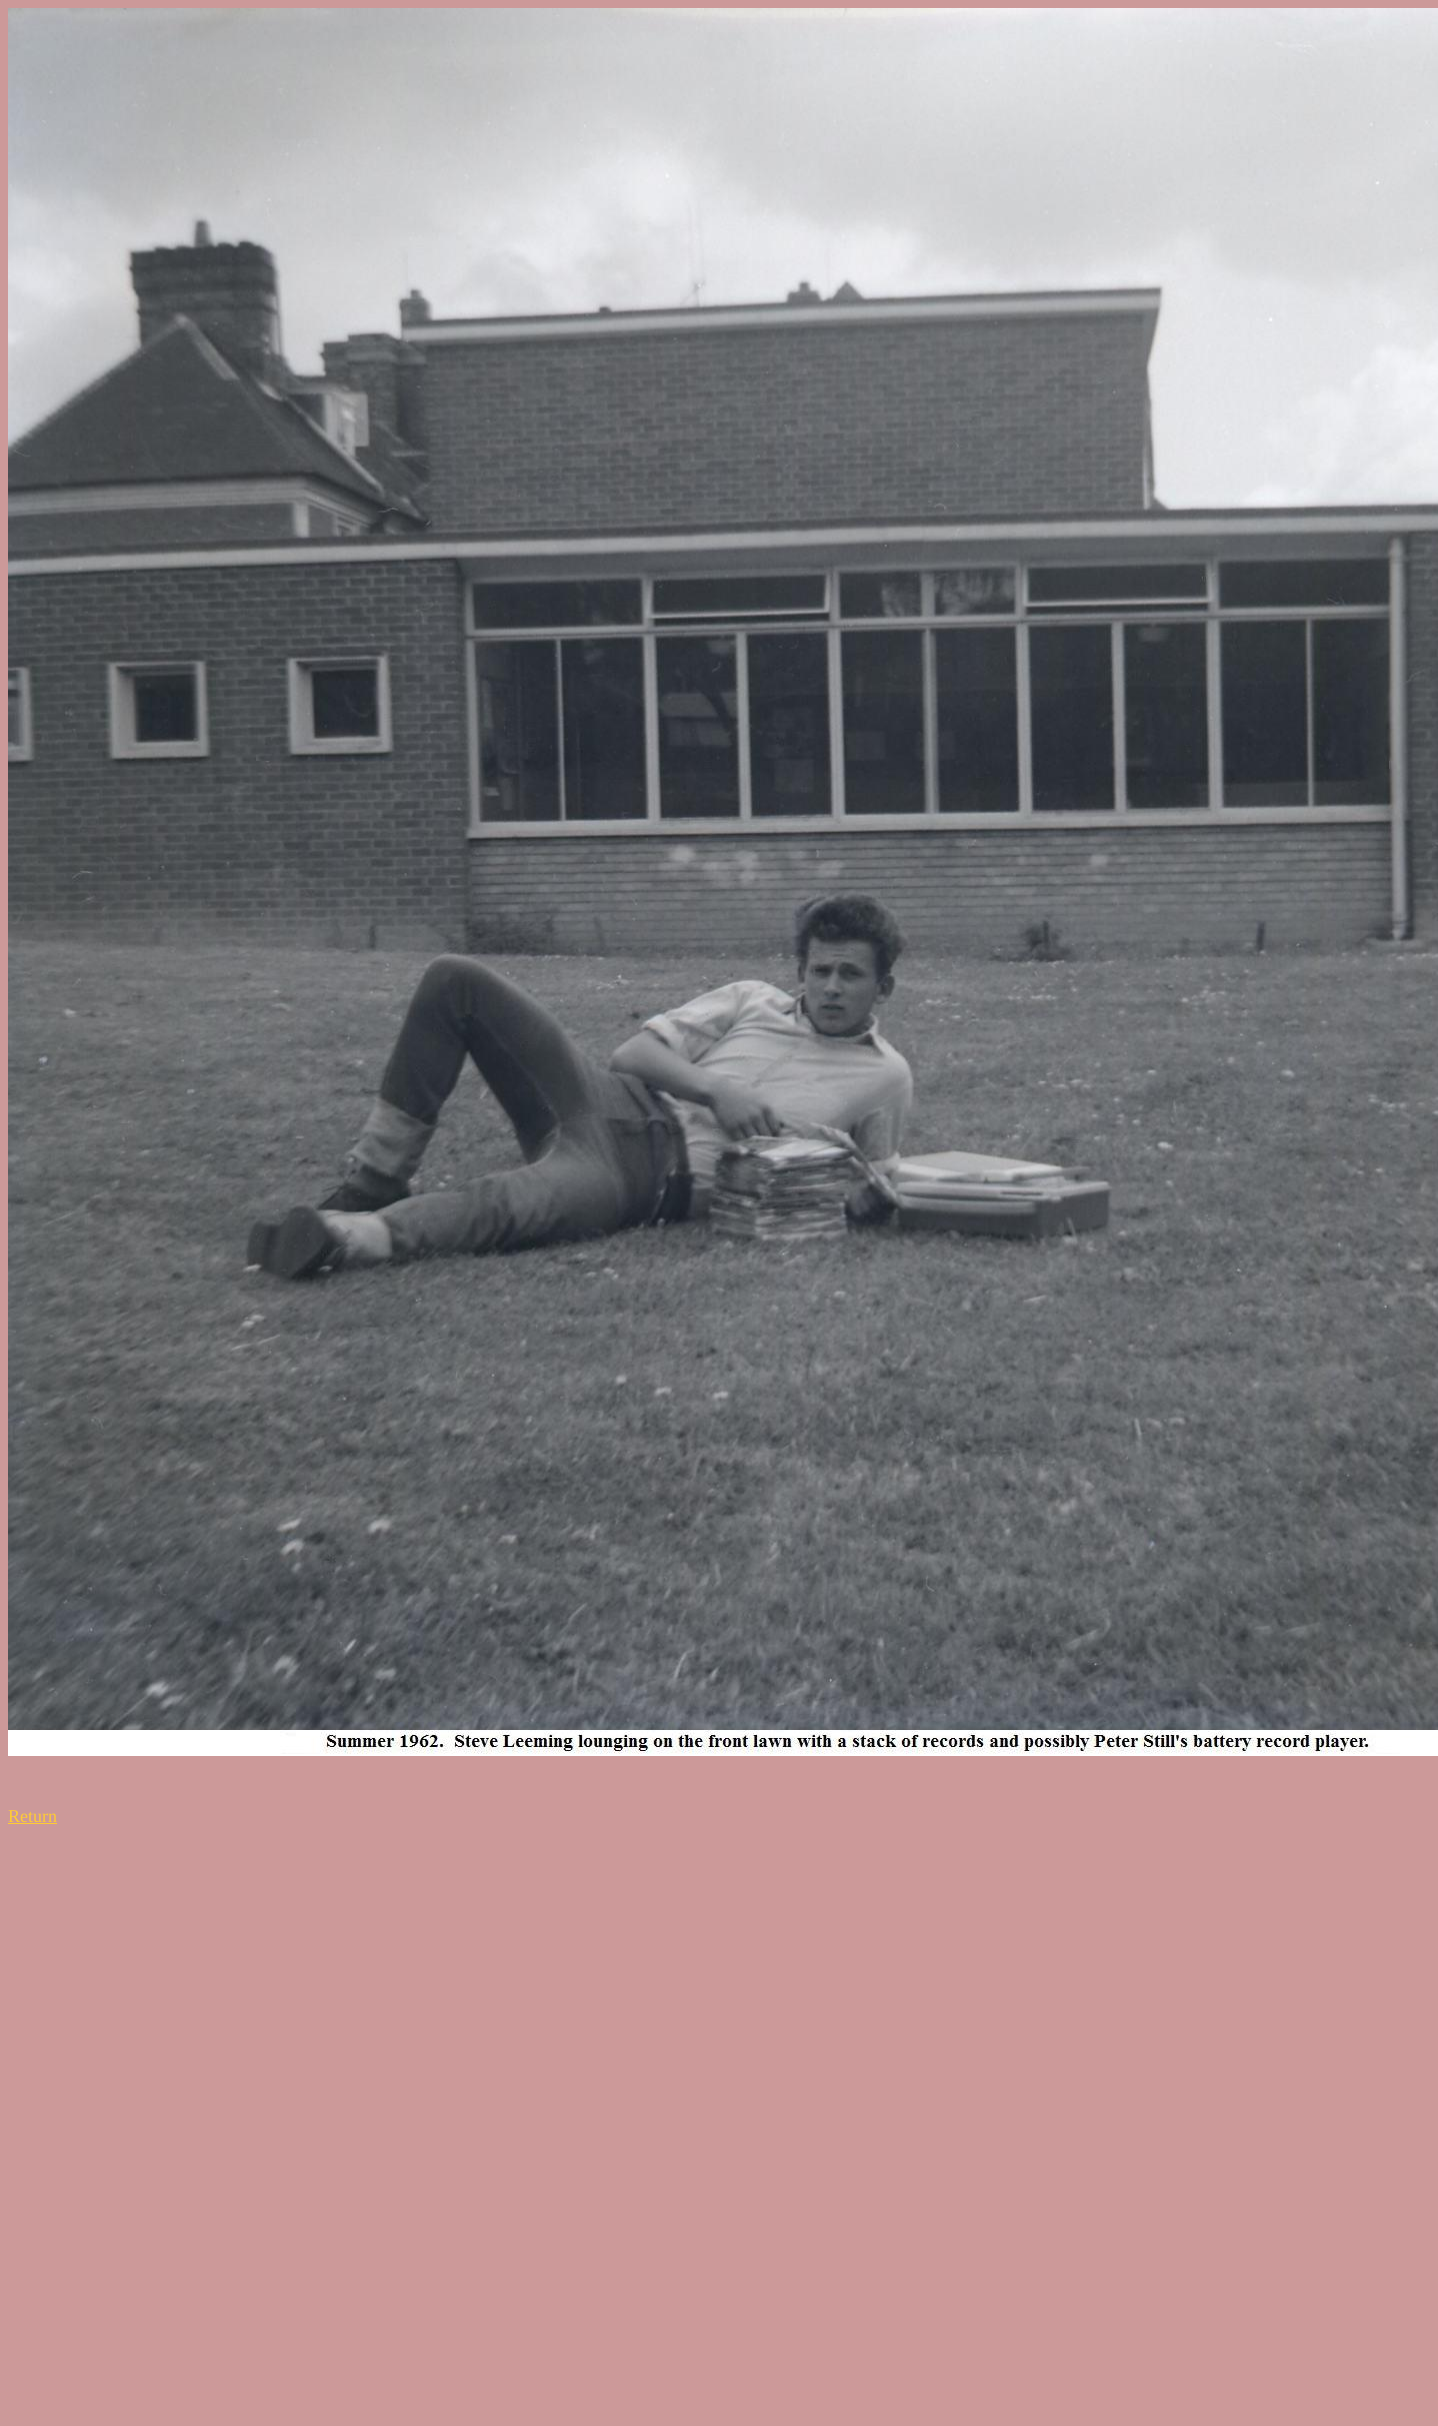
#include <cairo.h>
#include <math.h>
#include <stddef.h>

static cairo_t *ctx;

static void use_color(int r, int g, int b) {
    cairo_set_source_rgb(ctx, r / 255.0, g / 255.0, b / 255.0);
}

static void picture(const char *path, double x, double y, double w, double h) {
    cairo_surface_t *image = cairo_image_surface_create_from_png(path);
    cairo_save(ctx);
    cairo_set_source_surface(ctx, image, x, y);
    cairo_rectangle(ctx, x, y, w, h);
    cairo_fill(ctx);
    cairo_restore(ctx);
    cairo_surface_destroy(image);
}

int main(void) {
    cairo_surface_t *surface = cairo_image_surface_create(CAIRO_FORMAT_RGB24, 1438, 2426);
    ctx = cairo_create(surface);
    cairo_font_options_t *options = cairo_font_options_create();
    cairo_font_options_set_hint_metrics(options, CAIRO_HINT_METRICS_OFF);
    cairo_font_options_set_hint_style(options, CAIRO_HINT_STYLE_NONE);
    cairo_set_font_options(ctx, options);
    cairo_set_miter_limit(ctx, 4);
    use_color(204, 153, 153);
    cairo_paint(ctx);
    picture("img1.png", 8, 8, 1430, 1748);
    cairo_select_font_face(ctx, "Liberation Serif", CAIRO_FONT_SLANT_NORMAL, CAIRO_FONT_WEIGHT_NORMAL);
    cairo_set_font_size(ctx, 18);
    use_color(255, 204, 51);
    cairo_move_to(ctx, 8, 1822);
    cairo_show_text(ctx, "Return");
    cairo_rectangle(ctx, 8, 1823, 49, 1);
    cairo_fill(ctx);
    cairo_surface_write_to_png(surface, "result.png");
    cairo_font_options_destroy(options);
    cairo_destroy(ctx);
    cairo_surface_destroy(surface);
    return 0;
}
